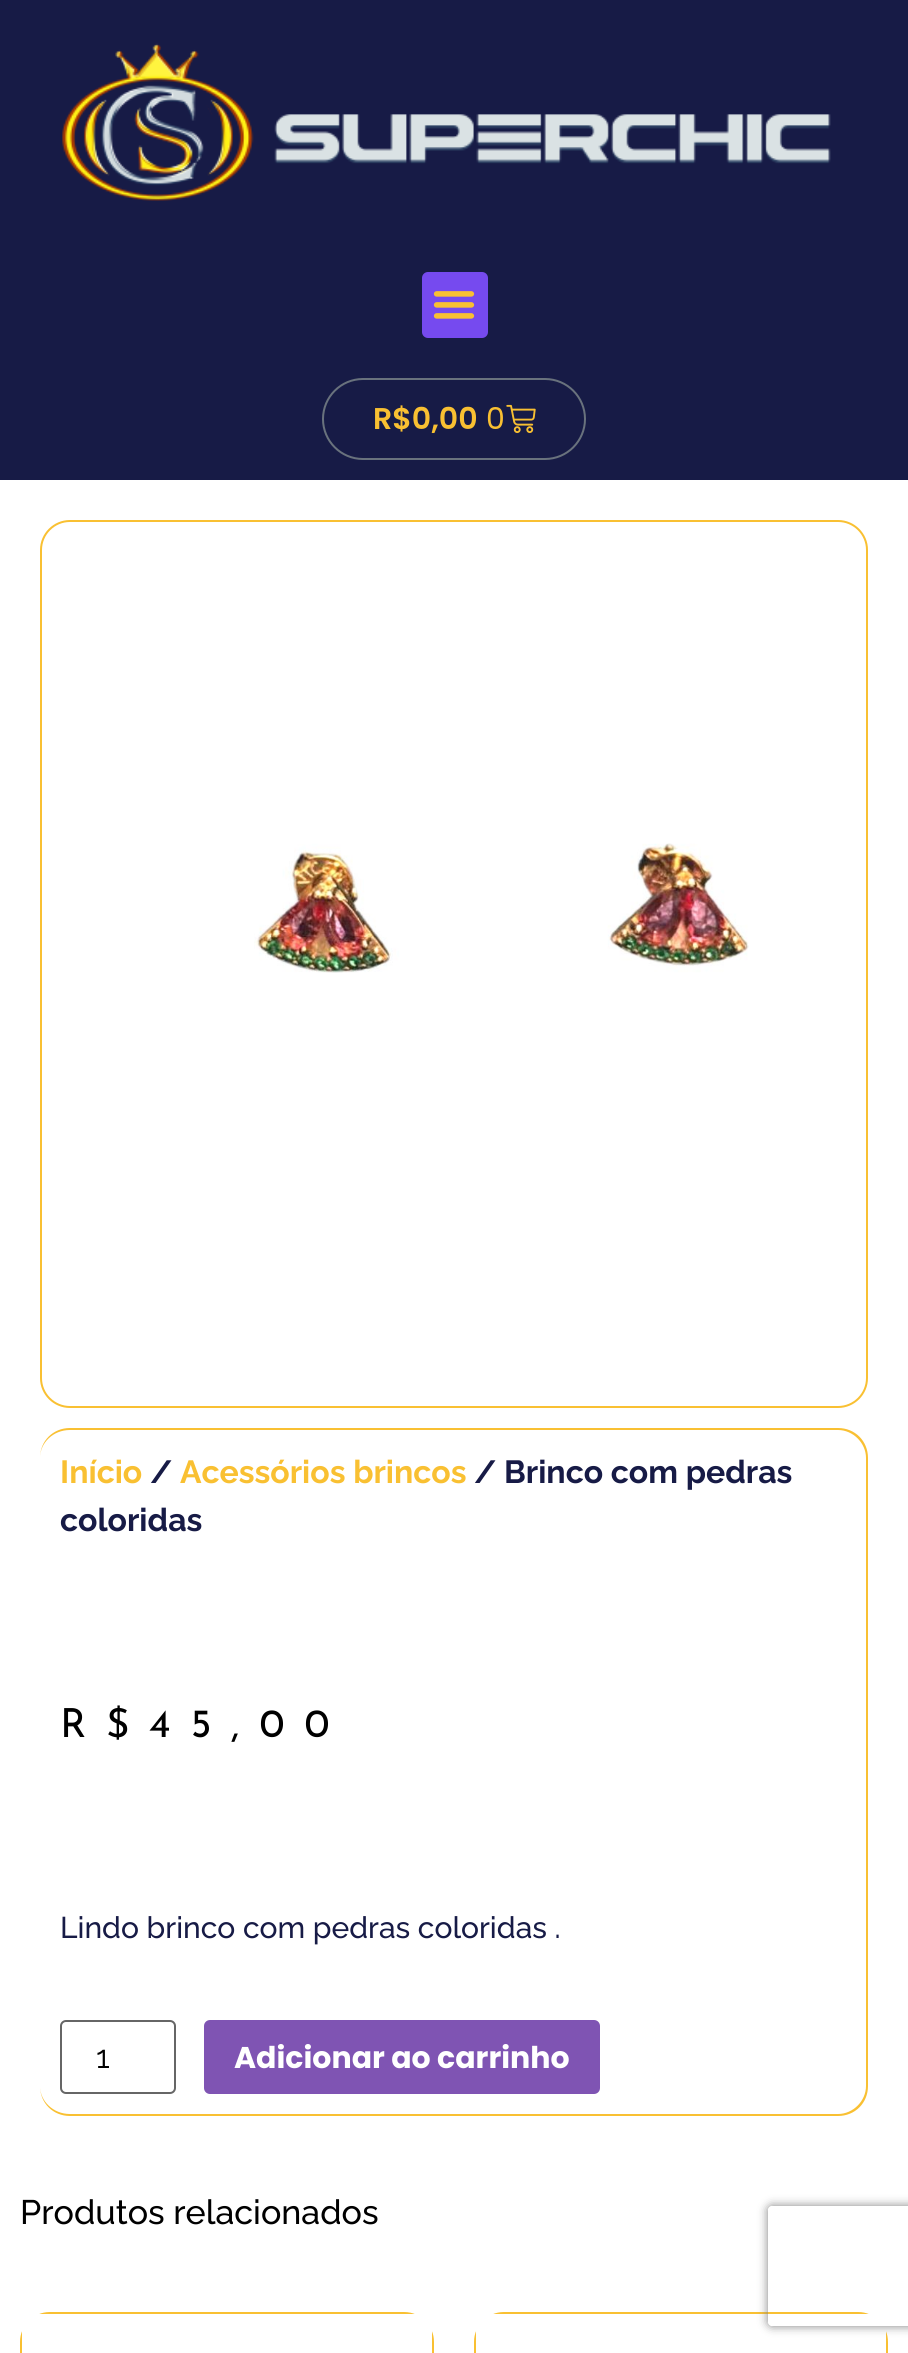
#include <cairo.h>
#include <math.h>
#include <stddef.h>

static cairo_t *ctx;

static void use_color(int r, int g, int b) {
    cairo_set_source_rgb(ctx, r / 255.0, g / 255.0, b / 255.0);
}

static void spaced_text(double x, double y, const char *s, double letter, double word) {
    cairo_move_to(ctx, x, y);
    while (*s) {
        char ch[5] = {0};
        int n = 0;
        do ch[n++] = *s++; while ((*s & 0xC0) == 0x80);
        cairo_show_text(ctx, ch);
        cairo_rel_move_to(ctx, letter + word * (*ch == ' '), 0);
    }
}

static void round_rect(double x, double y, double w, double h, double r) {
    cairo_new_sub_path(ctx);
    cairo_arc(ctx, x + w - r, y + h - r, r, 0, M_PI / 2);
    cairo_arc(ctx, x + r, y + h - r, r, M_PI / 2, M_PI);
    cairo_arc(ctx, x + r, y + r, r, M_PI, 1.5 * M_PI);
    cairo_arc(ctx, x + w - r, y + r, r, 1.5 * M_PI, 2 * M_PI);
    cairo_close_path(ctx);
}

static void shadow(double x, double y, double w, double h, double r, double blur, double alpha) {
    cairo_push_group_with_content(ctx, CAIRO_CONTENT_ALPHA);
    cairo_set_operator(ctx, CAIRO_OPERATOR_SOURCE);
    for (int i = 15; i >= -15 && fmin(w, h) + blur * i / 3 > 0; i -= 2) {
        double e = blur * i / 6;
        cairo_set_source_rgba(ctx, 0, 0, 0, alpha * erfc((i - 1) / 8.5) / 2);
        round_rect(x - e, y - e, w + 2 * e, h + 2 * e, fmax(0, fmin(r + e + blur * .6, fmin(w, h) / 2 + e)));
        cairo_fill(ctx);
    }
    cairo_pattern_t *soft = cairo_pop_group(ctx);
    cairo_mask(ctx, soft);
    cairo_pattern_destroy(soft);
}

static void picture(const char *path, double x, double y, double w, double h) {
    cairo_surface_t *image = cairo_image_surface_create_from_png(path);
    cairo_save(ctx);
    cairo_set_source_surface(ctx, image, x, y);
    cairo_rectangle(ctx, x, y, w, h);
    cairo_fill(ctx);
    cairo_restore(ctx);
    cairo_surface_destroy(image);
}

int main(void) {
    cairo_surface_t *surface = cairo_image_surface_create(CAIRO_FORMAT_RGB24, 908, 2353);
    ctx = cairo_create(surface);
    cairo_font_options_t *options = cairo_font_options_create();
    cairo_font_options_set_hint_metrics(options, CAIRO_HINT_METRICS_OFF);
    cairo_font_options_set_hint_style(options, CAIRO_HINT_STYLE_NONE);
    cairo_set_font_options(ctx, options);
    cairo_set_miter_limit(ctx, 4);
    use_color(255, 255, 255);
    cairo_paint(ctx);
    use_color(23, 27, 70);
    cairo_rectangle(ctx, 0, 0, 908, 480);
    cairo_fill(ctx);
    picture("img1.png", 62, 43, 769, 158);
    use_color(118, 74, 239);
    round_rect(422, 272, 66, 66, 6);
    cairo_fill(ctx);
    picture("img2.png", 433, 291, 42, 28);
    round_rect(323, 379, 262, 80, 40);
    use_color(105, 114, 125);
    cairo_stroke(ctx);
    cairo_select_font_face(ctx, "Poppins SemiBold", CAIRO_FONT_SLANT_NORMAL, CAIRO_FONT_WEIGHT_NORMAL);
    cairo_set_font_size(ctx, 30);
    use_color(249, 192, 50);
    cairo_move_to(ctx, 373, 429);
    cairo_show_text(ctx, "R$0,00");
    cairo_select_font_face(ctx, "Poppins", CAIRO_FONT_SLANT_NORMAL, CAIRO_FONT_WEIGHT_NORMAL);
    cairo_move_to(ctx, 486, 429);
    cairo_show_text(ctx, "0");
    picture("img3.png", 506, 404, 30, 30);
    round_rect(41, 521, 826, 886, 29);
    cairo_stroke(ctx);
    picture("img4.png", 254, 843, 495, 130);
    cairo_set_fill_rule(ctx, CAIRO_FILL_RULE_EVEN_ODD);
    cairo_new_path(ctx);
    cairo_move_to(ctx, 70, 1428);
    cairo_line_to(ctx, 838, 1428);
    cairo_curve_to(ctx, 855, 1428, 868, 1441, 868, 1458);
    cairo_line_to(ctx, 868, 2086);
    cairo_curve_to(ctx, 868, 2103, 855, 2116, 838, 2116);
    cairo_line_to(ctx, 70, 2116);
    cairo_curve_to(ctx, 53, 2116, 40, 2103, 40, 2086);
    cairo_line_to(ctx, 40, 1458);
    cairo_curve_to(ctx, 40, 1441, 53, 1428, 70, 1428);
    cairo_close_path(ctx);
    cairo_move_to(ctx, 70, 1430);
    cairo_line_to(ctx, 838, 1430);
    cairo_curve_to(ctx, 853, 1430, 866, 1443, 866, 1458);
    cairo_line_to(ctx, 866, 2086);
    cairo_curve_to(ctx, 866, 2101, 853, 2114, 838, 2114);
    cairo_line_to(ctx, 70, 2114);
    cairo_curve_to(ctx, 53, 2114, 40, 2101, 40, 2086);
    cairo_line_to(ctx, 40, 1458);
    cairo_curve_to(ctx, 40, 1443, 53, 1430, 70, 1430);
    cairo_close_path(ctx);
    cairo_fill(ctx);
    cairo_select_font_face(ctx, "Raleway", CAIRO_FONT_SLANT_NORMAL, CAIRO_FONT_WEIGHT_BOLD);
    cairo_set_font_size(ctx, 32);
    cairo_move_to(ctx, 60, 1483);
    cairo_show_text(ctx, "Início");
    use_color(23, 27, 70);
    cairo_move_to(ctx, 150, 1483);
    cairo_show_text(ctx, "/");
    use_color(249, 192, 50);
    cairo_move_to(ctx, 180, 1483);
    cairo_show_text(ctx, "Acessórios brincos");
    use_color(23, 27, 70);
    cairo_move_to(ctx, 474, 1483);
    cairo_show_text(ctx, "/ Brinco com pedras");
    cairo_move_to(ctx, 60, 1531);
    cairo_show_text(ctx, "coloridas");
    cairo_select_font_face(ctx, "Josefin Sans", CAIRO_FONT_SLANT_NORMAL, CAIRO_FONT_WEIGHT_NORMAL);
    cairo_set_font_size(ctx, 40);
    use_color(0, 0, 0);
    spaced_text(60, 1737, "R$45,00", 20, 0);
    cairo_select_font_face(ctx, "Raleway Medium", CAIRO_FONT_SLANT_NORMAL, CAIRO_FONT_WEIGHT_NORMAL);
    cairo_set_font_size(ctx, 30);
    use_color(23, 27, 70);
    cairo_move_to(ctx, 60, 1938);
    cairo_show_text(ctx, "Lindo brinco com pedras coloridas .");
    round_rect(61, 2021, 114, 72, 5);
    use_color(102, 102, 102);
    cairo_stroke(ctx);
    cairo_select_font_face(ctx, "Raleway", CAIRO_FONT_SLANT_NORMAL, CAIRO_FONT_WEIGHT_NORMAL);
    cairo_set_font_size(ctx, 32);
    use_color(0, 0, 0);
    cairo_move_to(ctx, 96, 2068);
    cairo_show_text(ctx, "1");
    use_color(127, 84, 179);
    round_rect(204, 2020, 396, 74, 6);
    cairo_fill(ctx);
    cairo_select_font_face(ctx, "Poppins", CAIRO_FONT_SLANT_NORMAL, CAIRO_FONT_WEIGHT_BOLD);
    cairo_set_font_size(ctx, 30);
    use_color(255, 255, 255);
    cairo_move_to(ctx, 234, 2068);
    cairo_show_text(ctx, "Adicionar ao carrinho");
    cairo_select_font_face(ctx, "Raleway Medium", CAIRO_FONT_SLANT_NORMAL, CAIRO_FONT_WEIGHT_NORMAL);
    cairo_set_font_size(ctx, 34);
    use_color(0, 0, 0);
    cairo_move_to(ctx, 20, 2224);
    cairo_show_text(ctx, "Produtos relacionados");
    round_rect(21, 2313, 412, 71, 29);
    use_color(249, 192, 50);
    cairo_stroke(ctx);
    use_color(255, 255, 255);
    cairo_rectangle(ctx, 22, 2314, 410, 28);
    cairo_fill(ctx);
    round_rect(475, 2313, 412, 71, 29);
    use_color(249, 192, 50);
    cairo_stroke(ctx);
    use_color(255, 255, 255);
    cairo_rectangle(ctx, 476, 2314, 410, 28);
    cairo_fill(ctx);
    cairo_save(ctx);
    cairo_new_path(ctx);
    cairo_move_to(ctx, 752, 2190);
    cairo_line_to(ctx, 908, 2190);
    cairo_line_to(ctx, 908, 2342);
    cairo_line_to(ctx, 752, 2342);
    cairo_close_path(ctx);
    cairo_move_to(ctx, 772, 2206);
    cairo_line_to(ctx, 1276, 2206);
    cairo_curve_to(ctx, 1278, 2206, 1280, 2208, 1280, 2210);
    cairo_line_to(ctx, 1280, 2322);
    cairo_curve_to(ctx, 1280, 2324, 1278, 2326, 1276, 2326);
    cairo_line_to(ctx, 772, 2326);
    cairo_curve_to(ctx, 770, 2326, 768, 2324, 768, 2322);
    cairo_line_to(ctx, 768, 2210);
    cairo_curve_to(ctx, 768, 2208, 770, 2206, 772, 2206);
    cairo_close_path(ctx);
    cairo_clip(ctx);
    use_color(128, 128, 128);
    shadow(768, 2206, 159, 120, 4, 5, 1);
    cairo_restore(ctx);
    cairo_surface_write_to_png(surface, "result.png");
    cairo_font_options_destroy(options);
    cairo_destroy(ctx);
    cairo_surface_destroy(surface);
    return 0;
}
